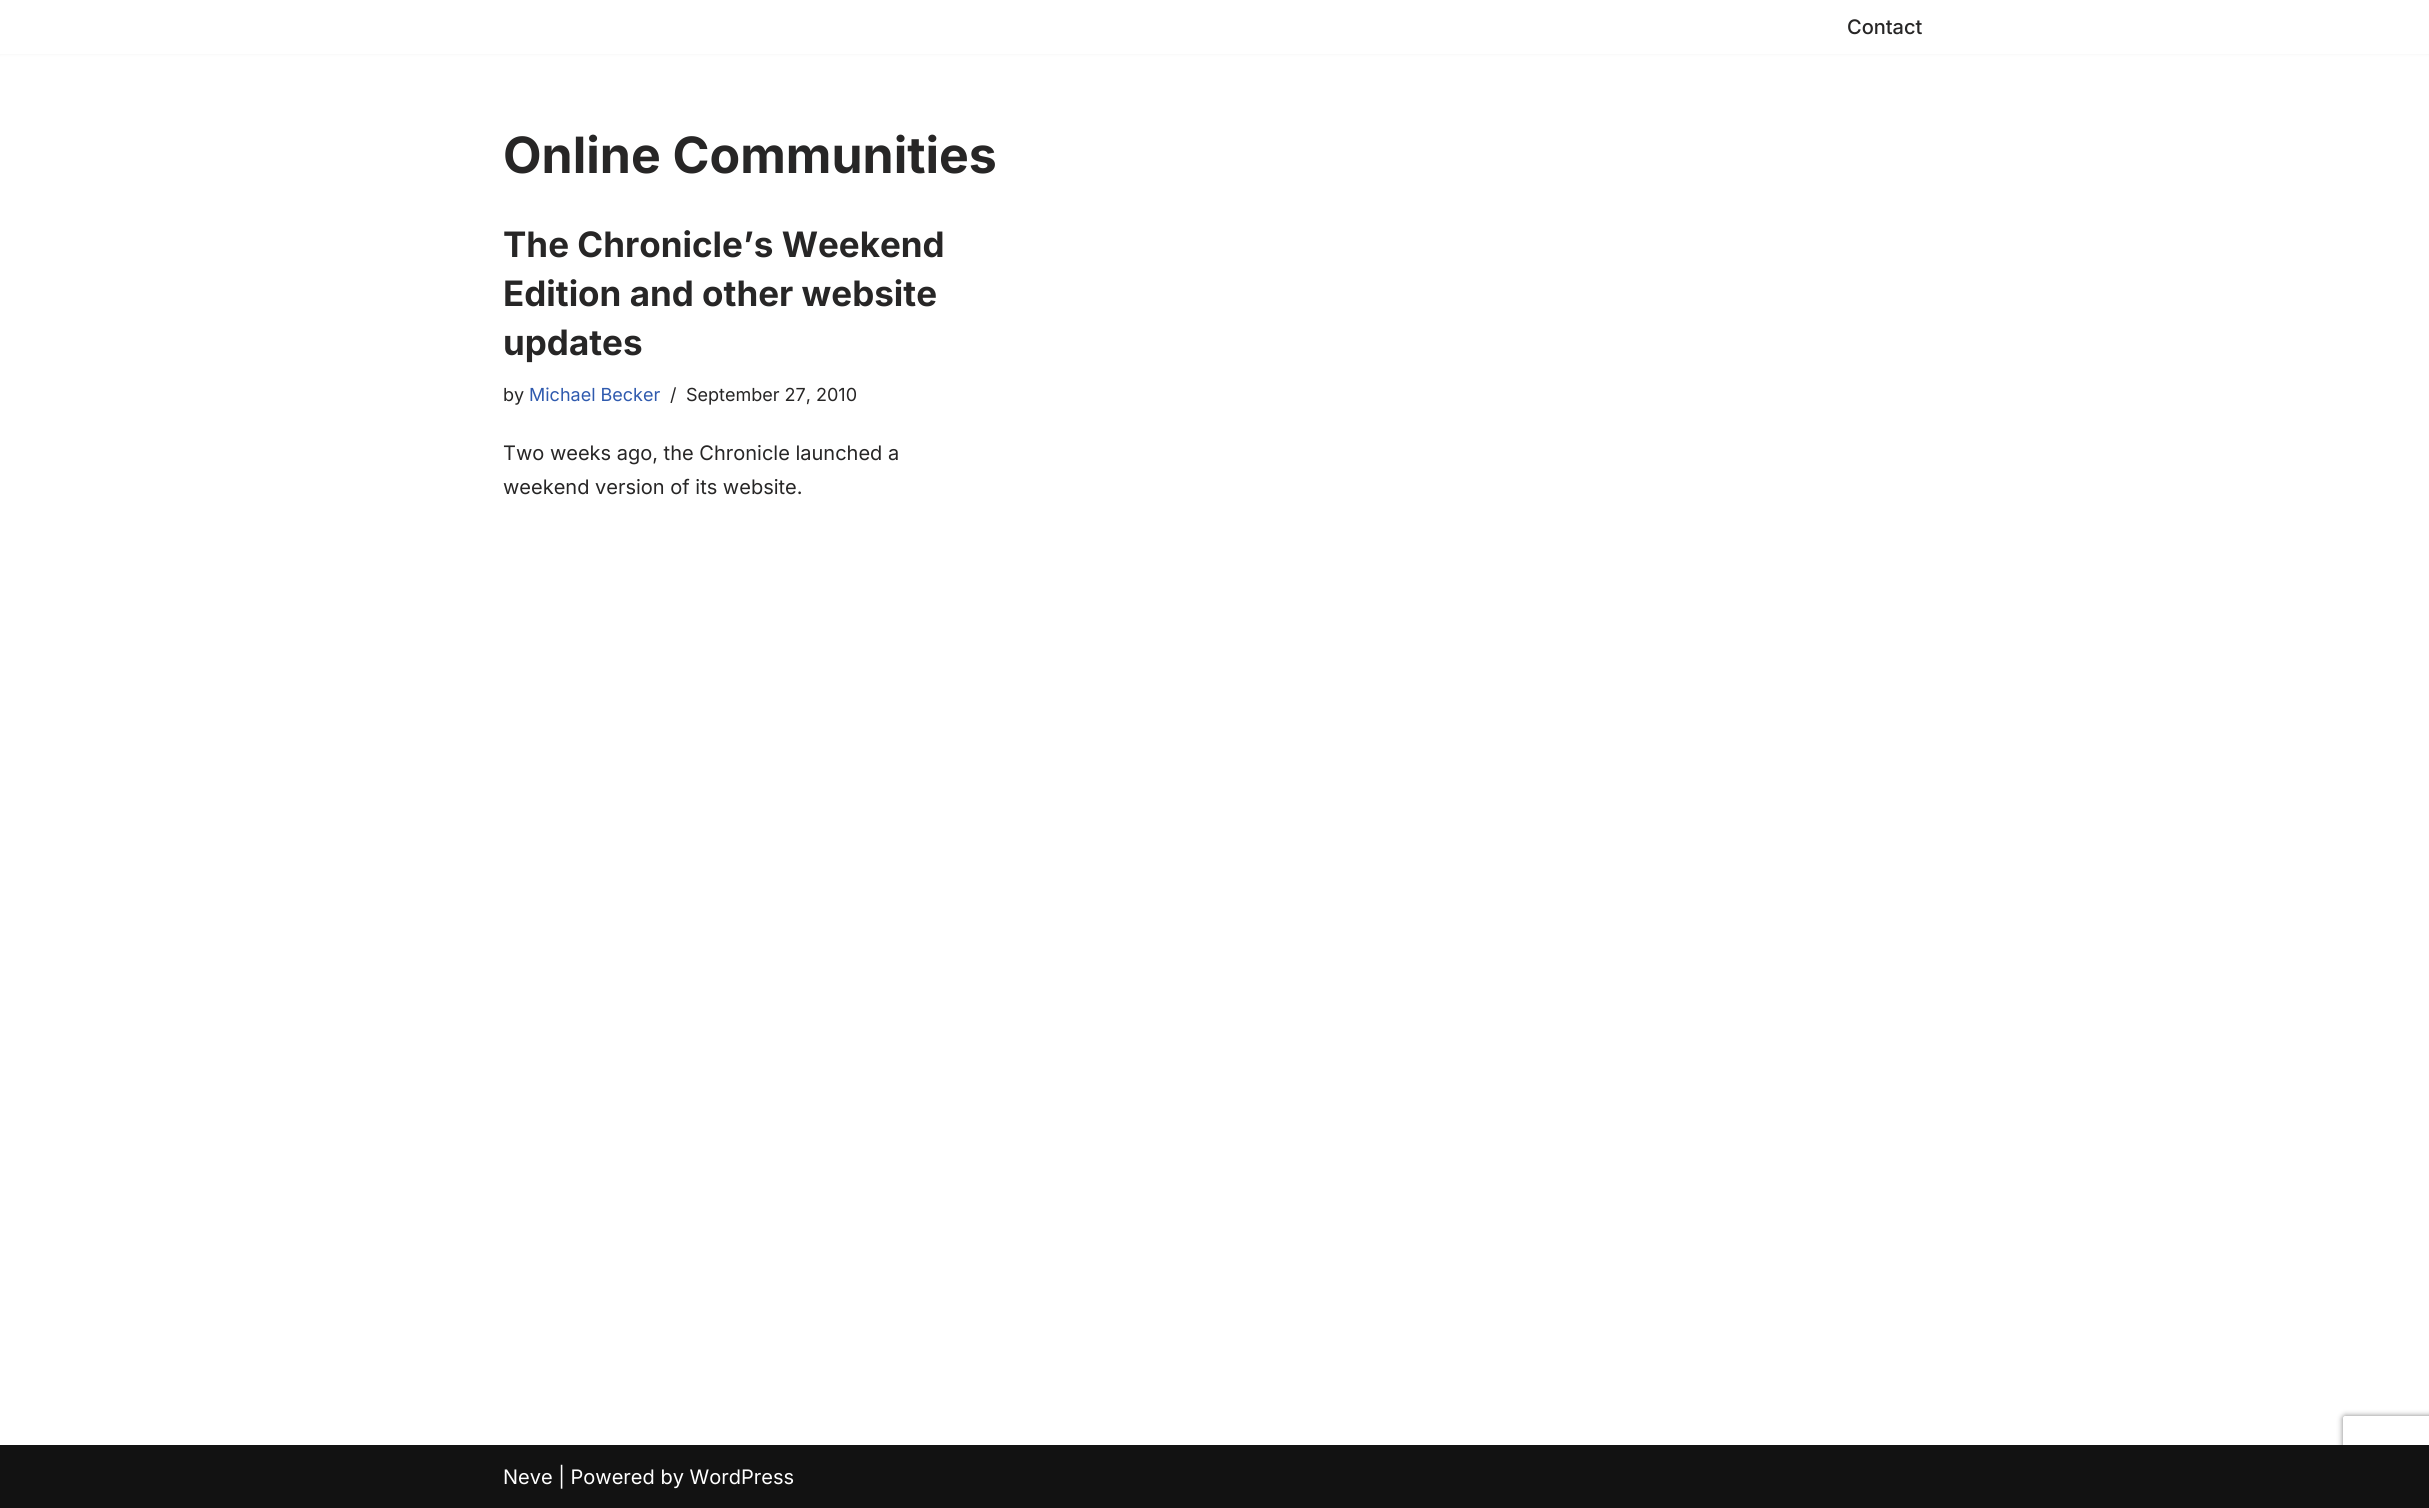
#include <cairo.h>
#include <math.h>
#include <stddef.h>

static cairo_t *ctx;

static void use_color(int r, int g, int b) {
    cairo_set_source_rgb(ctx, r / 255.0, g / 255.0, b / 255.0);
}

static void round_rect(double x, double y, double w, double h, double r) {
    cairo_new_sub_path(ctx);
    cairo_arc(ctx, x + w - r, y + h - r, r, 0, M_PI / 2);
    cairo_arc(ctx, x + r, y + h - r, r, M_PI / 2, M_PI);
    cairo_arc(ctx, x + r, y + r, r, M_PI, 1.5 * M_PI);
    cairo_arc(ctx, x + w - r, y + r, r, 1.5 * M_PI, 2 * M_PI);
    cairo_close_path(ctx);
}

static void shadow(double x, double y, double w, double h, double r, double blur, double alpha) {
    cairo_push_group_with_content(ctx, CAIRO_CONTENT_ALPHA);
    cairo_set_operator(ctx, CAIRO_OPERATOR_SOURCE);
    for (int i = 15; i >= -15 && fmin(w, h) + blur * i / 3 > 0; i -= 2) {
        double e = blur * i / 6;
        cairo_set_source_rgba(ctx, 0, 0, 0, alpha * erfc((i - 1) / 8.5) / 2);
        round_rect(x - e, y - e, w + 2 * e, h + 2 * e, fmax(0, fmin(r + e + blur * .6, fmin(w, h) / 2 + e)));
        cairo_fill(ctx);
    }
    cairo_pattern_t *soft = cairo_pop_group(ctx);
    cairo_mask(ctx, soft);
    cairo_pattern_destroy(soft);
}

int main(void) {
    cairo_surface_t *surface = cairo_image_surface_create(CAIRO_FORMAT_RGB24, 2429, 1508);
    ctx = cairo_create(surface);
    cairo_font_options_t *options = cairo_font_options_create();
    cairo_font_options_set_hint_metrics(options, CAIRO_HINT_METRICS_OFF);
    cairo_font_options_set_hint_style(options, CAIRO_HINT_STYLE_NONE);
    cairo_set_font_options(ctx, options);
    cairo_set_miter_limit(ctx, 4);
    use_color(255, 255, 255);
    cairo_paint(ctx);
    use_color(0, 0, 0);
    shadow(0, -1, 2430, 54, 0, 2, 0.1);
    use_color(255, 255, 255);
    cairo_rectangle(ctx, 0, 0, 2429, 54);
    cairo_fill(ctx);
    cairo_select_font_face(ctx, "Inter Medium", CAIRO_FONT_SLANT_NORMAL, CAIRO_FONT_WEIGHT_NORMAL);
    cairo_set_font_size(ctx, 20);
    use_color(39, 38, 38);
    cairo_move_to(ctx, 1847, 34);
    cairo_show_text(ctx, "Contact");
    cairo_select_font_face(ctx, "Inter", CAIRO_FONT_SLANT_NORMAL, CAIRO_FONT_WEIGHT_BOLD);
    cairo_set_font_size(ctx, 50);
    cairo_move_to(ctx, 503, 173);
    cairo_show_text(ctx, "Online Communities");
    cairo_set_font_size(ctx, 35);
    cairo_move_to(ctx, 503, 257);
    cairo_show_text(ctx, "The Chronicle’s Weekend");
    cairo_move_to(ctx, 503, 306);
    cairo_show_text(ctx, "Edition and other website");
    cairo_move_to(ctx, 503, 355);
    cairo_show_text(ctx, "updates");
    cairo_select_font_face(ctx, "Inter", CAIRO_FONT_SLANT_NORMAL, CAIRO_FONT_WEIGHT_NORMAL);
    cairo_set_font_size(ctx, 18);
    cairo_move_to(ctx, 503, 401);
    cairo_show_text(ctx, "by");
    use_color(47, 90, 174);
    cairo_move_to(ctx, 529, 401);
    cairo_show_text(ctx, "Michael Becker");
    use_color(39, 38, 38);
    cairo_move_to(ctx, 670, 401);
    cairo_show_text(ctx, "/");
    cairo_move_to(ctx, 686, 401);
    cairo_show_text(ctx, "September 27, 2010");
    cairo_set_font_size(ctx, 20);
    cairo_move_to(ctx, 503, 460);
    cairo_show_text(ctx, "Two weeks ago, the Chronicle launched a");
    cairo_move_to(ctx, 503, 494);
    cairo_show_text(ctx, "weekend version of its website.");
    cairo_save(ctx);
    cairo_set_fill_rule(ctx, CAIRO_FILL_RULE_EVEN_ODD);
    cairo_new_path(ctx);
    cairo_move_to(ctx, 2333, 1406);
    cairo_line_to(ctx, 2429, 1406);
    cairo_line_to(ctx, 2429, 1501);
    cairo_line_to(ctx, 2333, 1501);
    cairo_close_path(ctx);
    cairo_move_to(ctx, 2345.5, 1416);
    cairo_line_to(ctx, 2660.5, 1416);
    cairo_curve_to(ctx, 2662, 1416, 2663, 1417, 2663, 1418.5);
    cairo_line_to(ctx, 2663, 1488.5);
    cairo_curve_to(ctx, 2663, 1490, 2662, 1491, 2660.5, 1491);
    cairo_line_to(ctx, 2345.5, 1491);
    cairo_curve_to(ctx, 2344, 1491, 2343, 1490, 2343, 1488.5);
    cairo_line_to(ctx, 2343, 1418.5);
    cairo_curve_to(ctx, 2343, 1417, 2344, 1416, 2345.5, 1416);
    cairo_close_path(ctx);
    cairo_clip(ctx);
    use_color(128, 128, 128);
    shadow(2343, 1416, 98, 75, 2.5, 3, 1);
    cairo_restore(ctx);
    use_color(18, 18, 18);
    cairo_rectangle(ctx, 0, 1445, 2429, 63);
    cairo_fill(ctx);
    use_color(255, 255, 255);
    cairo_move_to(ctx, 503, 1484);
    cairo_show_text(ctx, "Neve | Powered by WordPress");
    cairo_surface_write_to_png(surface, "result.png");
    cairo_font_options_destroy(options);
    cairo_destroy(ctx);
    cairo_surface_destroy(surface);
    return 0;
}
